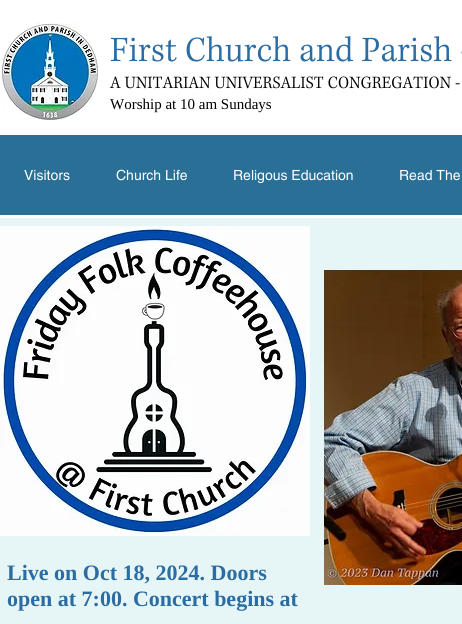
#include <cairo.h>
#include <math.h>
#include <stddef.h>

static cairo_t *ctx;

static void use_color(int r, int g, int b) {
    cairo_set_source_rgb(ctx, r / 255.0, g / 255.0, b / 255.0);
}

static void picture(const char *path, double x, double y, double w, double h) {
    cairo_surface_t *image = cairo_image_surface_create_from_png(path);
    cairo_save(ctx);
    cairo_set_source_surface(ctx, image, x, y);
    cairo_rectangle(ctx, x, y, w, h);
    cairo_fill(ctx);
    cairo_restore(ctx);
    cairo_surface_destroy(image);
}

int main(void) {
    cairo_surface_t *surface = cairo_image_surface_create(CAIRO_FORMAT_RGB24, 462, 624);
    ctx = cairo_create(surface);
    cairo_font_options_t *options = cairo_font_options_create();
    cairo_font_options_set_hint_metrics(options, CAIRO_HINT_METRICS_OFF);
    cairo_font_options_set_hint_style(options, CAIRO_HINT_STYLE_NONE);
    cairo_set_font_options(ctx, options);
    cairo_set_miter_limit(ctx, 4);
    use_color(255, 255, 255);
    cairo_paint(ctx);
    picture("img1.png", 1, 23, 97, 97);
    picture("img2.png", 110, 36, 352, 26);
    picture("img3.png", 109, 76, 351, 13);
    cairo_select_font_face(ctx, "Liberation Serif", CAIRO_FONT_SLANT_NORMAL, CAIRO_FONT_WEIGHT_NORMAL);
    cairo_set_font_size(ctx, 15);
    use_color(0, 0, 0);
    cairo_move_to(ctx, 110, 109);
    cairo_show_text(ctx, "Worship at 10 am Sundays");
    use_color(41, 111, 150);
    cairo_rectangle(ctx, 0, 135, 462, 80);
    cairo_fill(ctx);
    cairo_select_font_face(ctx, "helvetica", CAIRO_FONT_SLANT_NORMAL, CAIRO_FONT_WEIGHT_NORMAL);
    cairo_set_font_size(ctx, 14);
    use_color(255, 255, 255);
    cairo_move_to(ctx, 24, 180);
    cairo_show_text(ctx, "Visitors");
    cairo_move_to(ctx, 116, 180);
    cairo_show_text(ctx, "Church Life");
    cairo_move_to(ctx, 233, 180);
    cairo_show_text(ctx, "Religous Education");
    cairo_move_to(ctx, 399, 180);
    cairo_show_text(ctx, "Read The");
    use_color(230, 246, 246);
    cairo_rectangle(ctx, 0, 218, 462, 406);
    cairo_fill(ctx);
    picture("img4.png", 0, 226, 310, 310);
    picture("img5.png", 324, 270, 138, 315);
    cairo_select_font_face(ctx, "Liberation Serif", CAIRO_FONT_SLANT_NORMAL, CAIRO_FONT_WEIGHT_BOLD);
    cairo_set_font_size(ctx, 22);
    use_color(43, 108, 163);
    cairo_move_to(ctx, 7, 580);
    cairo_show_text(ctx, "Live on Oct 18, 2024. Doors");
    cairo_move_to(ctx, 7, 606);
    cairo_show_text(ctx, "open at 7:00. Concert begins at");
    cairo_surface_write_to_png(surface, "result.png");
    cairo_font_options_destroy(options);
    cairo_destroy(ctx);
    cairo_surface_destroy(surface);
    return 0;
}
